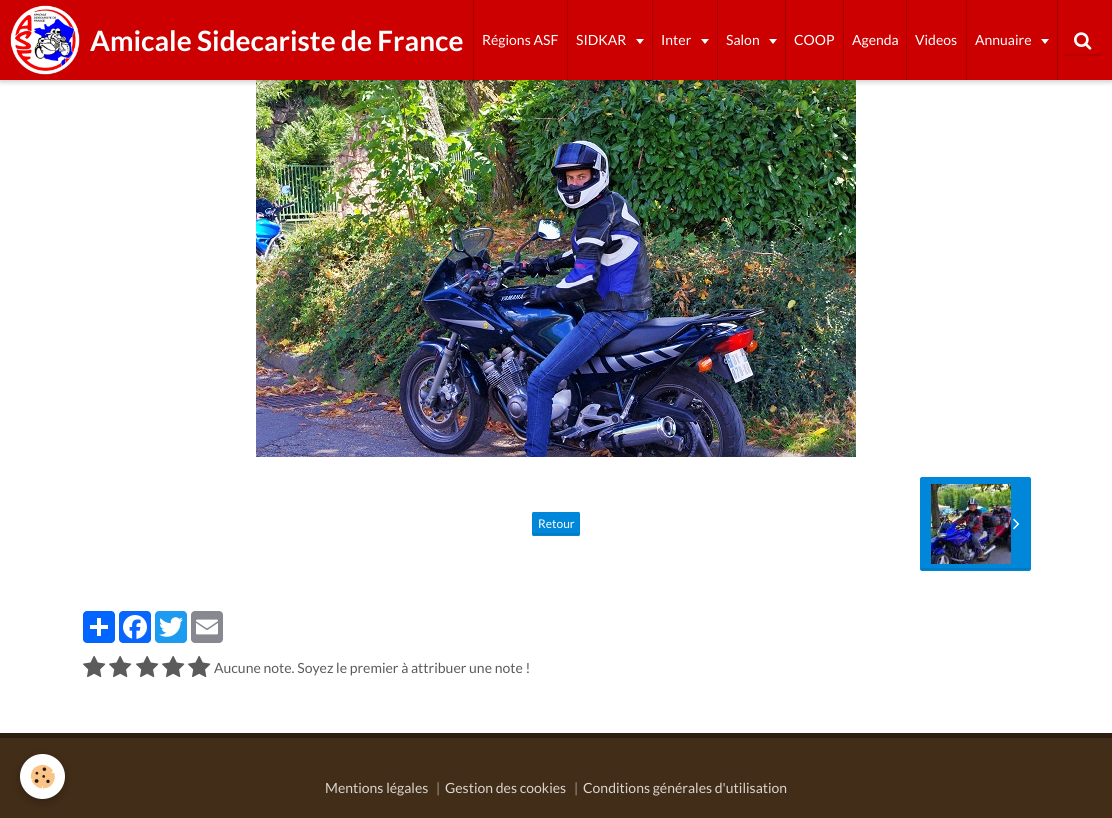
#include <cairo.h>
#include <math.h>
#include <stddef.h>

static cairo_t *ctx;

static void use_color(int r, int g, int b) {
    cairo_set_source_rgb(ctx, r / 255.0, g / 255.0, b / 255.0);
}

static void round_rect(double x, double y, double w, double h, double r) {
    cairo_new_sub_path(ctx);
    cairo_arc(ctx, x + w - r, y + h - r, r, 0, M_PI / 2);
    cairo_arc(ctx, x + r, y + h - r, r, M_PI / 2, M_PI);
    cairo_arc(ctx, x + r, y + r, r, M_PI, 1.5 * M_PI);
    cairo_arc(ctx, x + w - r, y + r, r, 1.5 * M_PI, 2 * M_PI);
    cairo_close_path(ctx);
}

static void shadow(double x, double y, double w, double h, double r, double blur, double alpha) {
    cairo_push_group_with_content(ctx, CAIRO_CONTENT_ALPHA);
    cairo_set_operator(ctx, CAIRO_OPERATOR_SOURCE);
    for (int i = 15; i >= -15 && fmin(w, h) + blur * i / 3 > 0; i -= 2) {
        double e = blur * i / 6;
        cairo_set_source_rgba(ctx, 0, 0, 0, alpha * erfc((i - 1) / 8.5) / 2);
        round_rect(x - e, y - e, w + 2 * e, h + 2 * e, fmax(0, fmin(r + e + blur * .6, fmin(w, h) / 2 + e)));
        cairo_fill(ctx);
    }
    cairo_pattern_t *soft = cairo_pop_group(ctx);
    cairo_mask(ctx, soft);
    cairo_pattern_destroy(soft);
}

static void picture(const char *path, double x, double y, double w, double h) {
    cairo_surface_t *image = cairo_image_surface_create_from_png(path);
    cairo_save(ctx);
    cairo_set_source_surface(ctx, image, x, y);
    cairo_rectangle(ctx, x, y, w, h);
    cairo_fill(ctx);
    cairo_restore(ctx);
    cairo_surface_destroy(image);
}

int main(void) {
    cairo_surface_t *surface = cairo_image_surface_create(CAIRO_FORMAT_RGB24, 1112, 818);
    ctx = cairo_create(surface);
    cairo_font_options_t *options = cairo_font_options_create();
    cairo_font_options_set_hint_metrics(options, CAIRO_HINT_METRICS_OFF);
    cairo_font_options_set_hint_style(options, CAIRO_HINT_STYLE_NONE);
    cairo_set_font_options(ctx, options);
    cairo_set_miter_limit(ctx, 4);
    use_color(255, 255, 255);
    cairo_paint(ctx);
    picture("img3.png", 256, 80, 600, 377);
    use_color(0, 0, 0);
    shadow(0, 2, 1112, 80, 0, 2.5, 0.2);
    use_color(204, 0, 0);
    cairo_rectangle(ctx, 0, 0, 1112, 80);
    cairo_fill(ctx);
    picture("img1.png", 10, 5, 70, 70);
    cairo_select_font_face(ctx, "Lato", CAIRO_FONT_SLANT_NORMAL, CAIRO_FONT_WEIGHT_BOLD);
    cairo_set_font_size(ctx, 28);
    use_color(255, 255, 255);
    cairo_move_to(ctx, 90, 51);
    cairo_show_text(ctx, "Amicale Sidecariste de France");
    use_color(163, 0, 0);
    cairo_rectangle(ctx, 567, 0, 1, 80);
    cairo_fill(ctx);
    cairo_rectangle(ctx, 473, 0, 1, 80);
    cairo_fill(ctx);
    cairo_select_font_face(ctx, "Lato", CAIRO_FONT_SLANT_NORMAL, CAIRO_FONT_WEIGHT_NORMAL);
    cairo_set_font_size(ctx, 14);
    use_color(255, 255, 255);
    cairo_move_to(ctx, 482, 45);
    cairo_show_text(ctx, "Régions ASF");
    use_color(163, 0, 0);
    cairo_rectangle(ctx, 652, 0, 1, 80);
    cairo_fill(ctx);
    use_color(255, 255, 255);
    cairo_move_to(ctx, 576, 45);
    cairo_show_text(ctx, "SIDKAR");
    cairo_new_path(ctx);
    cairo_move_to(ctx, 636, 39);
    cairo_line_to(ctx, 644, 39);
    cairo_line_to(ctx, 640, 44);
    cairo_close_path(ctx);
    cairo_fill(ctx);
    use_color(163, 0, 0);
    cairo_rectangle(ctx, 717, 0, 1, 80);
    cairo_fill(ctx);
    use_color(255, 255, 255);
    cairo_move_to(ctx, 661, 45);
    cairo_show_text(ctx, "Inter");
    cairo_new_path(ctx);
    cairo_move_to(ctx, 701, 39);
    cairo_line_to(ctx, 709, 39);
    cairo_line_to(ctx, 705, 44);
    cairo_close_path(ctx);
    cairo_fill(ctx);
    use_color(163, 0, 0);
    cairo_rectangle(ctx, 785, 0, 1, 80);
    cairo_fill(ctx);
    use_color(255, 255, 255);
    cairo_move_to(ctx, 726, 45);
    cairo_show_text(ctx, "Salon");
    cairo_new_path(ctx);
    cairo_move_to(ctx, 769, 39);
    cairo_line_to(ctx, 777, 39);
    cairo_line_to(ctx, 773, 44);
    cairo_close_path(ctx);
    cairo_fill(ctx);
    use_color(163, 0, 0);
    cairo_rectangle(ctx, 843, 0, 1, 80);
    cairo_fill(ctx);
    use_color(255, 255, 255);
    cairo_move_to(ctx, 794, 45);
    cairo_show_text(ctx, "COOP");
    use_color(163, 0, 0);
    cairo_rectangle(ctx, 906, 0, 1, 80);
    cairo_fill(ctx);
    use_color(255, 255, 255);
    cairo_move_to(ctx, 852, 45);
    cairo_show_text(ctx, "Agenda");
    use_color(163, 0, 0);
    cairo_rectangle(ctx, 966, 0, 1, 80);
    cairo_fill(ctx);
    use_color(255, 255, 255);
    cairo_move_to(ctx, 915, 45);
    cairo_show_text(ctx, "Videos");
    use_color(163, 0, 0);
    cairo_rectangle(ctx, 1057, 0, 1, 80);
    cairo_fill(ctx);
    use_color(255, 255, 255);
    cairo_move_to(ctx, 975, 45);
    cairo_show_text(ctx, "Annuaire");
    cairo_new_path(ctx);
    cairo_move_to(ctx, 1041, 39);
    cairo_line_to(ctx, 1049, 39);
    cairo_line_to(ctx, 1045, 44);
    cairo_close_path(ctx);
    cairo_fill(ctx);
    use_color(184, 0, 0);
    cairo_new_path(ctx);
    cairo_move_to(ctx, 1064, 52);
    cairo_curve_to(ctx, 1064, 57.5, 1065, 56, 1071, 56);
    cairo_line_to(ctx, 1094, 56);
    cairo_curve_to(ctx, 1100, 56, 1101, 57.5, 1101, 52);
    cairo_curve_to(ctx, 1101, 53, 1100, 54, 1099, 54);
    cairo_line_to(ctx, 1066, 54);
    cairo_curve_to(ctx, 1065, 54, 1064, 53, 1064, 52);
    cairo_close_path(ctx);
    cairo_fill(ctx);
    picture("img2.png", 1074, 32, 18, 18);
    use_color(0, 135, 217);
    round_rect(532, 512, 48, 24, 2);
    cairo_fill(ctx);
    use_color(0, 122, 195);
    cairo_new_path(ctx);
    cairo_move_to(ctx, 533, 532);
    cairo_curve_to(ctx, 533, 537, 535, 535, 541, 535);
    cairo_line_to(ctx, 571, 535);
    cairo_curve_to(ctx, 577, 535, 579, 537, 579, 532);
    cairo_line_to(ctx, 578, 533);
    cairo_line_to(ctx, 534, 533);
    cairo_close_path(ctx);
    cairo_fill(ctx);
    round_rect(532.5, 512.5, 47, 23, 1.5);
    use_color(0, 135, 217);
    cairo_set_line_width(ctx, 1);
    cairo_stroke(ctx);
    cairo_set_font_size(ctx, 12);
    use_color(255, 255, 255);
    cairo_move_to(ctx, 538, 528);
    cairo_show_text(ctx, "Retour");
    use_color(0, 135, 217);
    round_rect(920, 477, 111, 94, 2.5);
    cairo_fill(ctx);
    use_color(0, 122, 195);
    cairo_new_path(ctx);
    cairo_move_to(ctx, 921, 566);
    cairo_line_to(ctx, 921, 568);
    cairo_curve_to(ctx, 921, 569, 922, 570, 922, 570);
    cairo_line_to(ctx, 1028, 570);
    cairo_curve_to(ctx, 1029, 570, 1030, 569, 1030, 568);
    cairo_line_to(ctx, 1030, 567);
    cairo_line_to(ctx, 1028, 568);
    cairo_line_to(ctx, 929, 568);
    cairo_curve_to(ctx, 927, 568, 922, 570, 921, 566);
    cairo_close_path(ctx);
    cairo_fill(ctx);
    round_rect(920.5, 477.5, 110, 93, 2);
    use_color(0, 135, 217);
    cairo_stroke(ctx);
    picture("img4.png", 931, 484, 80, 80);
    picture("img5.png", 1013, 518, 7, 12);
    use_color(1, 102, 255);
    round_rect(83, 611, 32, 32, 4);
    cairo_fill(ctx);
    use_color(255, 255, 255);
    cairo_rectangle(ctx, 97, 618, 4, 18);
    cairo_fill(ctx);
    cairo_rectangle(ctx, 90, 625, 18, 4);
    cairo_fill(ctx);
    use_color(8, 102, 255);
    round_rect(119, 611, 32, 32, 4);
    cairo_fill(ctx);
    picture("img6.png", 123, 615, 24, 24);
    use_color(29, 155, 240);
    round_rect(155, 611, 32, 32, 4);
    cairo_fill(ctx);
    picture("img7.png", 159, 617, 24, 20);
    use_color(136, 137, 144);
    round_rect(191, 611, 32, 32, 4);
    cairo_fill(ctx);
    picture("img8.png", 196, 619, 22, 16);
    picture("img9.png", 83, 655, 23, 23);
    picture("img9.png", 109, 655, 23, 23);
    picture("img9.png", 136, 655, 23, 23);
    picture("img9.png", 162, 655, 23, 23);
    picture("img9.png", 188, 655, 23, 23);
    cairo_set_font_size(ctx, 14);
    use_color(91, 91, 91);
    cairo_move_to(ctx, 214, 673);
    cairo_show_text(ctx, "Aucune note. Soyez le premier à attribuer une note !");
    use_color(66, 45, 24);
    cairo_rectangle(ctx, 0, 738, 1112, 80);
    cairo_fill(ctx);
    use_color(0, 0, 0);
    shadow(20, 757, 45, 45, 22.5, 5, 0.24);
    use_color(255, 255, 255);
    cairo_arc(ctx, 42.5, 776.5, 22.5, 0, 2 * M_PI);
    cairo_fill(ctx);
    picture("img10.png", 30, 764, 25, 25);
    use_color(43, 29, 16);
    cairo_rectangle(ctx, 0, 733, 1112, 5);
    cairo_fill(ctx);
    use_color(217, 213, 209);
    cairo_move_to(ctx, 325, 793);
    cairo_show_text(ctx, "Mentions légales");
    use_color(161, 150, 140);
    cairo_move_to(ctx, 436, 793);
    cairo_show_text(ctx, "|");
    use_color(217, 213, 209);
    cairo_move_to(ctx, 445, 793);
    cairo_show_text(ctx, "Gestion des cookies");
    use_color(161, 150, 140);
    cairo_move_to(ctx, 574, 793);
    cairo_show_text(ctx, "|");
    use_color(217, 213, 209);
    cairo_move_to(ctx, 583, 793);
    cairo_show_text(ctx, "Conditions générales d'utilisation");
    cairo_surface_write_to_png(surface, "result.png");
    cairo_font_options_destroy(options);
    cairo_destroy(ctx);
    cairo_surface_destroy(surface);
    return 0;
}
